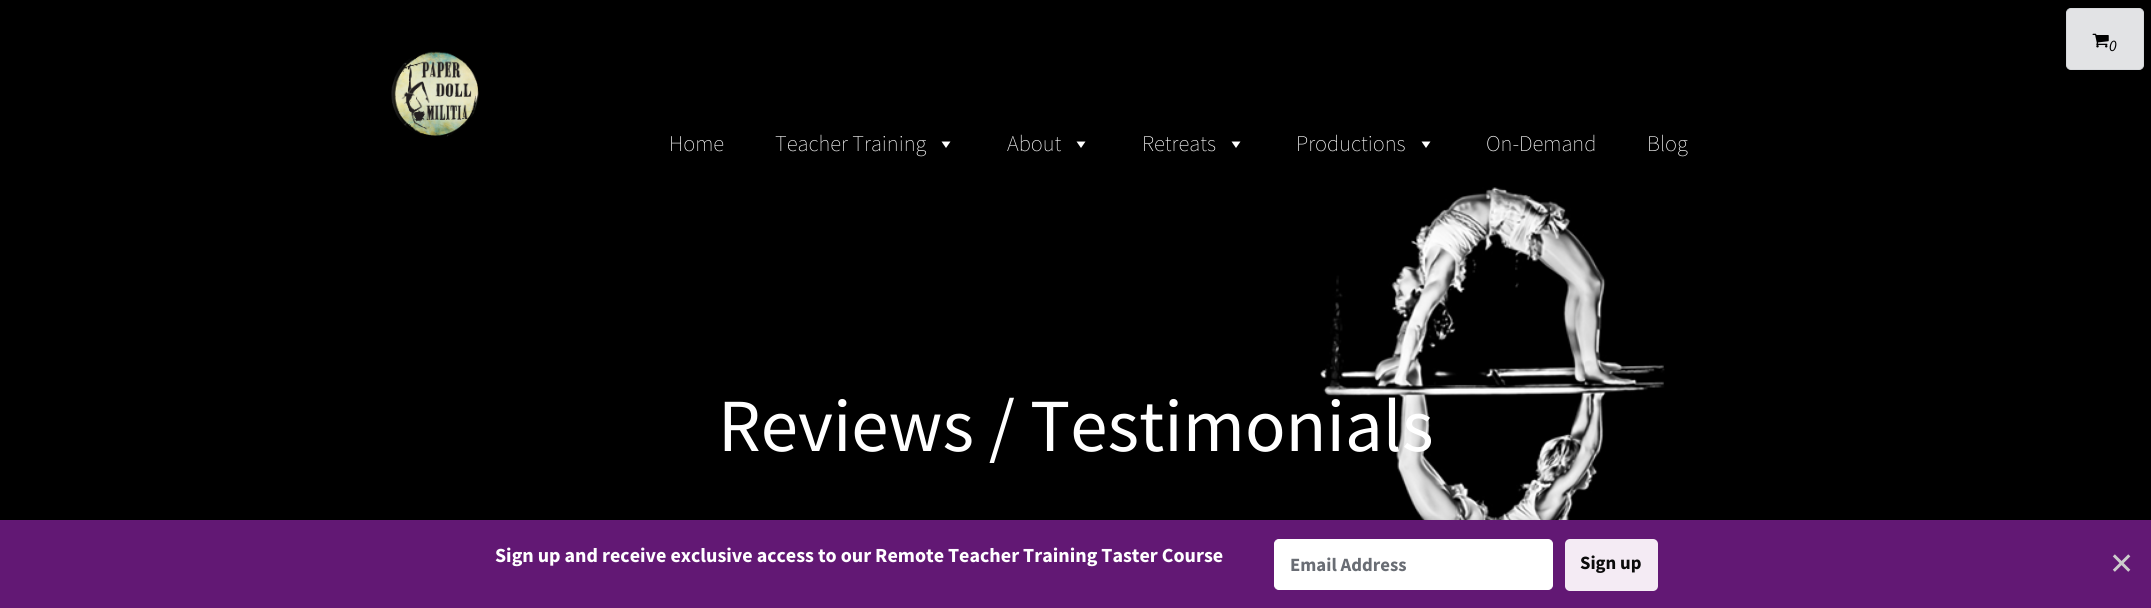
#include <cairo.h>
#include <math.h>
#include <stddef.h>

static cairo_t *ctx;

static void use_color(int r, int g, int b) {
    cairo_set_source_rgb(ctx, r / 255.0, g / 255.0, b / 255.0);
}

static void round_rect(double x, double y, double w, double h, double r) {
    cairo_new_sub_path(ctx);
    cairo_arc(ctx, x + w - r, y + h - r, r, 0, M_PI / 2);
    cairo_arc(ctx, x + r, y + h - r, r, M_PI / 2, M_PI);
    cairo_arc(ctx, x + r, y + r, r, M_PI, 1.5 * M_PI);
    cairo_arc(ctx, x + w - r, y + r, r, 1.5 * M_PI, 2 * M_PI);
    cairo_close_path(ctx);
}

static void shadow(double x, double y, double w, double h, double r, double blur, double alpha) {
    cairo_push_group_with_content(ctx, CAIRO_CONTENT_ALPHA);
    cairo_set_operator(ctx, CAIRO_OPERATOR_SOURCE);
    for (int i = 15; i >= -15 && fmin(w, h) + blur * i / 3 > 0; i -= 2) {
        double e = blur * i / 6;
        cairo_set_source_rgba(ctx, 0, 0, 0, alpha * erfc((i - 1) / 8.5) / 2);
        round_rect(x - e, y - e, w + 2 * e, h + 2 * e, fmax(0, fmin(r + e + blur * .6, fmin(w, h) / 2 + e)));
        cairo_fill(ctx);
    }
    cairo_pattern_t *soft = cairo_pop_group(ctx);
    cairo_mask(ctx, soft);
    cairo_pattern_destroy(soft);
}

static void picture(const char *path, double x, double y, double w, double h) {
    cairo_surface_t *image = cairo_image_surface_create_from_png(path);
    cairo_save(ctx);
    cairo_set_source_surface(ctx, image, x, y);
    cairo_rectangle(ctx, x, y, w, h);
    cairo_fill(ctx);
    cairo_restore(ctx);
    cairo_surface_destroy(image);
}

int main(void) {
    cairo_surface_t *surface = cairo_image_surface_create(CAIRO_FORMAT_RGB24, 2151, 608);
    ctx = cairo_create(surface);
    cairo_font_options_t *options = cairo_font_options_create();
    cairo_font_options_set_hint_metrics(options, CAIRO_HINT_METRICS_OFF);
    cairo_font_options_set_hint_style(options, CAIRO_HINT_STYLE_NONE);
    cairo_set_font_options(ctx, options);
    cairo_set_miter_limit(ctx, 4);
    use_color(0, 0, 0);
    cairo_paint(ctx);
    use_color(226, 227, 229);
    round_rect(2066.5, 8.5, 77, 61, 4.5);
    cairo_fill_preserve(ctx);
    use_color(214, 216, 219);
    cairo_set_line_width(ctx, 1);
    cairo_stroke(ctx);
    picture("img1.png", 2092, 33, 17, 15);
    cairo_select_font_face(ctx, "Source Sans Pro", CAIRO_FONT_SLANT_ITALIC, CAIRO_FONT_WEIGHT_NORMAL);
    cairo_set_font_size(ctx, 16);
    use_color(0, 0, 0);
    cairo_move_to(ctx, 2109, 51);
    cairo_show_text(ctx, "0");
    picture("img2.png", 391, 51, 88, 86);
    cairo_select_font_face(ctx, "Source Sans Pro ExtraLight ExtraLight", CAIRO_FONT_SLANT_NORMAL, CAIRO_FONT_WEIGHT_NORMAL);
    cairo_set_font_size(ctx, 22.5);
    use_color(255, 255, 255);
    cairo_move_to(ctx, 669, 151);
    cairo_show_text(ctx, "Home");
    cairo_move_to(ctx, 775, 151);
    cairo_show_text(ctx, "Teacher Training");
    cairo_new_path(ctx);
    cairo_move_to(ctx, 950.5, 141.5);
    cairo_line_to(ctx, 946, 148);
    cairo_line_to(ctx, 941.5, 141.5);
    cairo_close_path(ctx);
    cairo_fill(ctx);
    cairo_move_to(ctx, 1007, 151);
    cairo_show_text(ctx, "About");
    cairo_new_path(ctx);
    cairo_move_to(ctx, 1085.5, 141.5);
    cairo_line_to(ctx, 1081, 148);
    cairo_line_to(ctx, 1076.5, 141.5);
    cairo_close_path(ctx);
    cairo_fill(ctx);
    cairo_move_to(ctx, 1142, 151);
    cairo_show_text(ctx, "Retreats");
    cairo_new_path(ctx);
    cairo_move_to(ctx, 1240.5, 141.5);
    cairo_line_to(ctx, 1236, 148);
    cairo_line_to(ctx, 1231.5, 141.5);
    cairo_close_path(ctx);
    cairo_fill(ctx);
    cairo_move_to(ctx, 1296, 151);
    cairo_show_text(ctx, "Productions");
    cairo_new_path(ctx);
    cairo_move_to(ctx, 1430.5, 141.5);
    cairo_line_to(ctx, 1426, 148);
    cairo_line_to(ctx, 1421.5, 141.5);
    cairo_close_path(ctx);
    cairo_fill(ctx);
    cairo_move_to(ctx, 1486, 151);
    cairo_show_text(ctx, "On-Demand");
    cairo_move_to(ctx, 1647, 151);
    cairo_show_text(ctx, "Blog");
    picture("img3.png", 1320, 187, 345, 333);
    cairo_select_font_face(ctx, "Source Sans Pro", CAIRO_FONT_SLANT_NORMAL, CAIRO_FONT_WEIGHT_NORMAL);
    cairo_set_font_size(ctx, 75);
    cairo_move_to(ctx, 718, 451);
    cairo_show_text(ctx, "Reviews / Testimonials");
    use_color(0, 0, 0);
    shadow(0, 520, 2151, 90, 0, 4.5, 0.15);
    use_color(98, 24, 116);
    cairo_rectangle(ctx, 0, 520, 2151, 88);
    cairo_fill(ctx);
    cairo_select_font_face(ctx, "Source Sans Pro", CAIRO_FONT_SLANT_NORMAL, CAIRO_FONT_WEIGHT_BOLD);
    cairo_set_font_size(ctx, 20);
    use_color(255, 255, 255);
    cairo_move_to(ctx, 495, 562);
    cairo_show_text(ctx, "Sign up and receive exclusive access to our Remote Teacher Training Taster Course");
    round_rect(1274.5, 539.5, 278, 50, 4.5);
    cairo_fill_preserve(ctx);
    cairo_stroke(ctx);
    cairo_set_font_size(ctx, 18.75);
    use_color(105, 109, 116);
    cairo_move_to(ctx, 1290, 571);
    cairo_show_text(ctx, "Email Address");
    use_color(244, 235, 244);
    round_rect(1565, 539, 93, 52, 5);
    cairo_fill(ctx);
    use_color(11, 11, 11);
    cairo_move_to(ctx, 1580, 569);
    cairo_show_text(ctx, "Sign up");
    cairo_select_font_face(ctx, "DejaVu Sans", CAIRO_FONT_SLANT_NORMAL, CAIRO_FONT_WEIGHT_NORMAL);
    cairo_set_font_size(ctx, 30);
    use_color(204, 204, 204);
    cairo_move_to(ctx, 2109, 574);
    cairo_show_text(ctx, "✕");
    cairo_surface_write_to_png(surface, "result.png");
    cairo_font_options_destroy(options);
    cairo_destroy(ctx);
    cairo_surface_destroy(surface);
    return 0;
}
